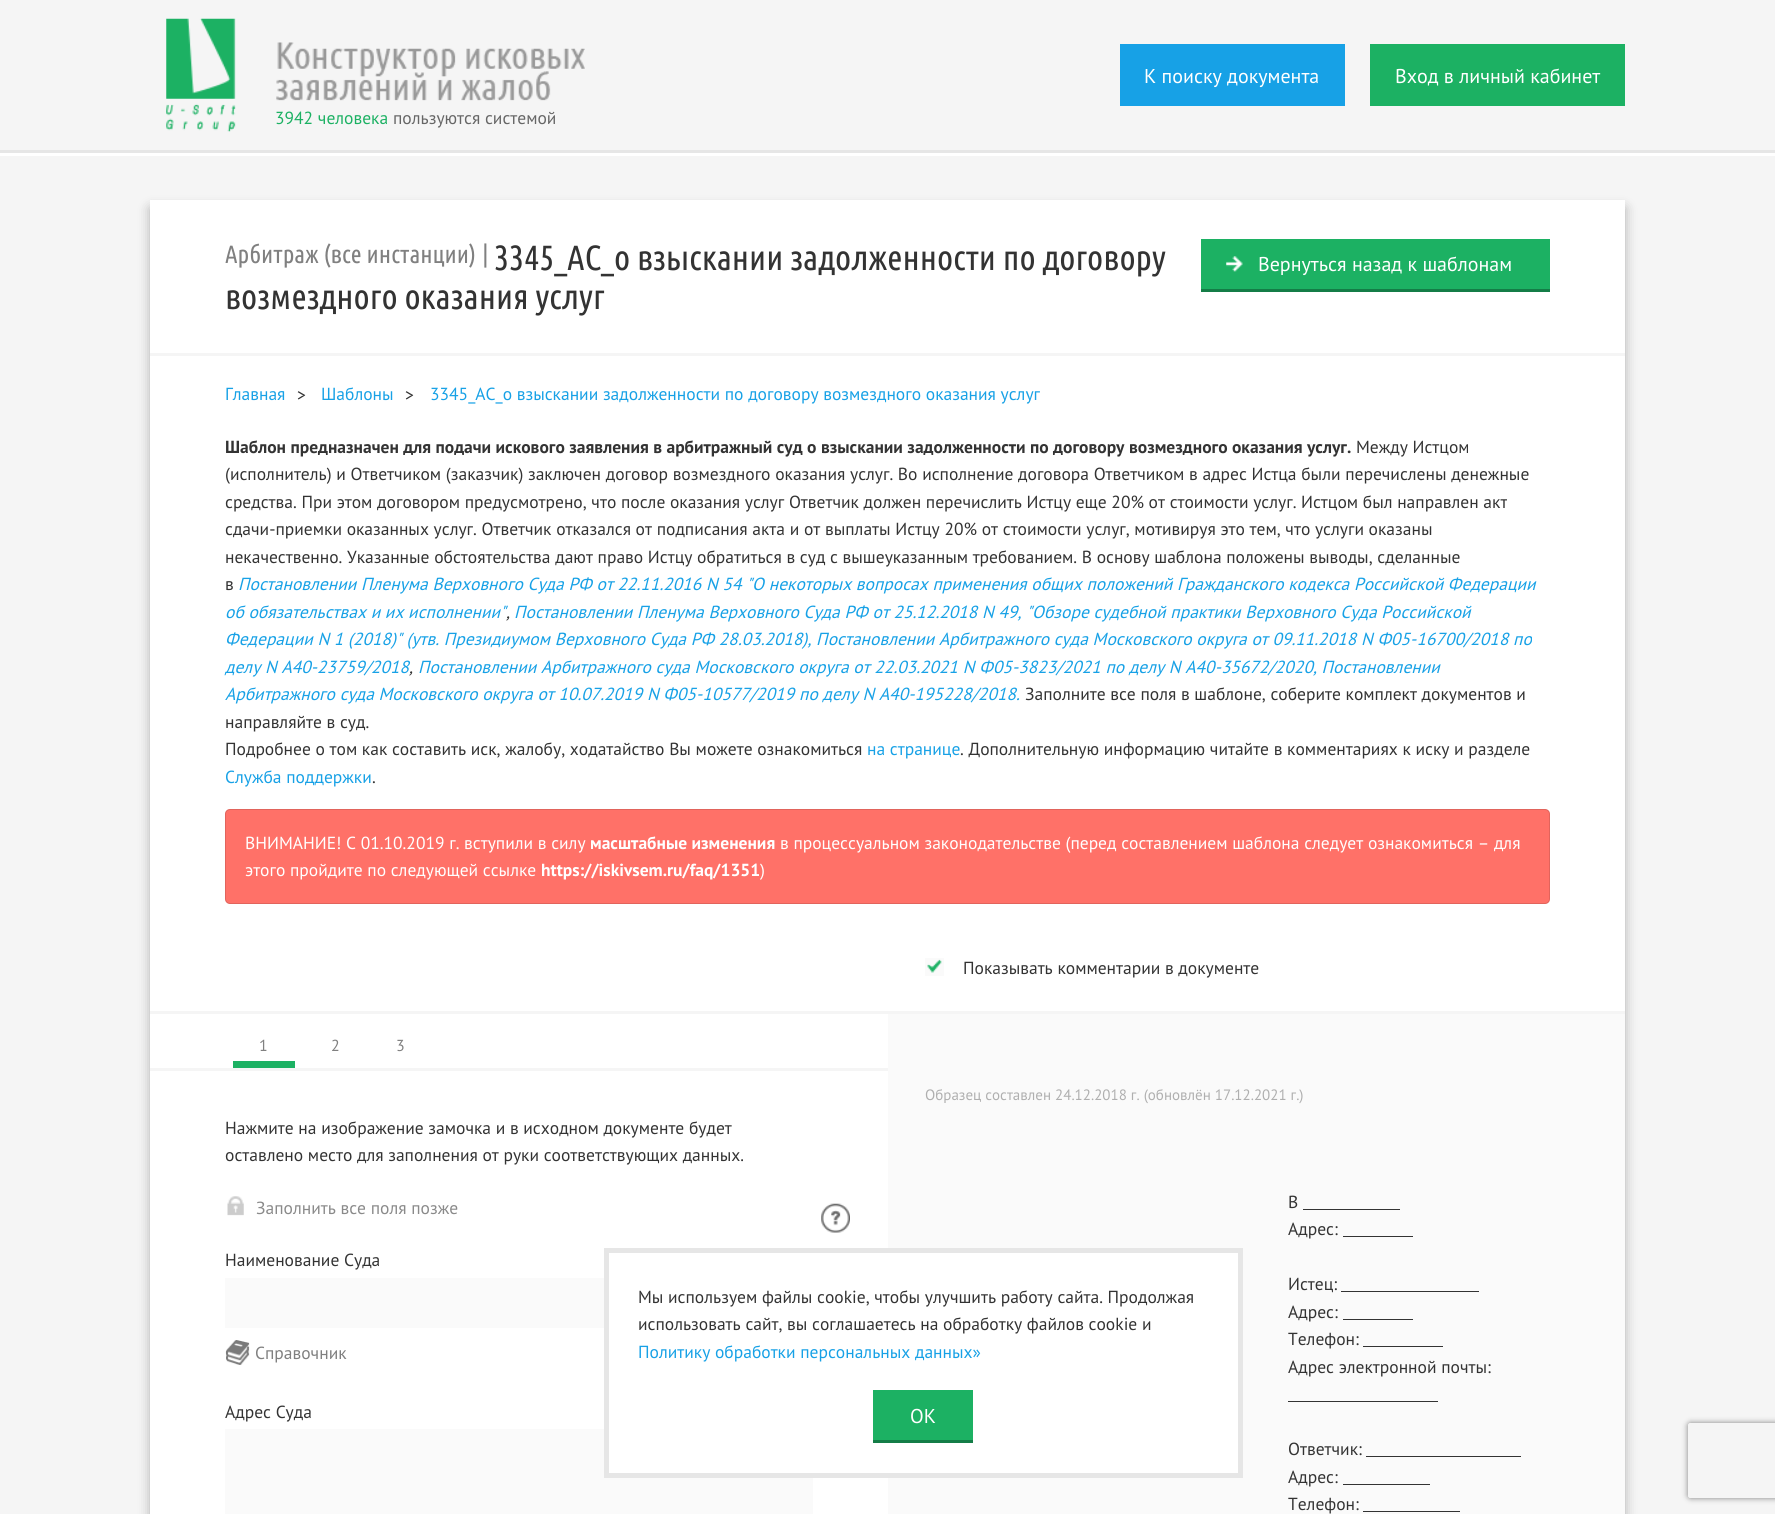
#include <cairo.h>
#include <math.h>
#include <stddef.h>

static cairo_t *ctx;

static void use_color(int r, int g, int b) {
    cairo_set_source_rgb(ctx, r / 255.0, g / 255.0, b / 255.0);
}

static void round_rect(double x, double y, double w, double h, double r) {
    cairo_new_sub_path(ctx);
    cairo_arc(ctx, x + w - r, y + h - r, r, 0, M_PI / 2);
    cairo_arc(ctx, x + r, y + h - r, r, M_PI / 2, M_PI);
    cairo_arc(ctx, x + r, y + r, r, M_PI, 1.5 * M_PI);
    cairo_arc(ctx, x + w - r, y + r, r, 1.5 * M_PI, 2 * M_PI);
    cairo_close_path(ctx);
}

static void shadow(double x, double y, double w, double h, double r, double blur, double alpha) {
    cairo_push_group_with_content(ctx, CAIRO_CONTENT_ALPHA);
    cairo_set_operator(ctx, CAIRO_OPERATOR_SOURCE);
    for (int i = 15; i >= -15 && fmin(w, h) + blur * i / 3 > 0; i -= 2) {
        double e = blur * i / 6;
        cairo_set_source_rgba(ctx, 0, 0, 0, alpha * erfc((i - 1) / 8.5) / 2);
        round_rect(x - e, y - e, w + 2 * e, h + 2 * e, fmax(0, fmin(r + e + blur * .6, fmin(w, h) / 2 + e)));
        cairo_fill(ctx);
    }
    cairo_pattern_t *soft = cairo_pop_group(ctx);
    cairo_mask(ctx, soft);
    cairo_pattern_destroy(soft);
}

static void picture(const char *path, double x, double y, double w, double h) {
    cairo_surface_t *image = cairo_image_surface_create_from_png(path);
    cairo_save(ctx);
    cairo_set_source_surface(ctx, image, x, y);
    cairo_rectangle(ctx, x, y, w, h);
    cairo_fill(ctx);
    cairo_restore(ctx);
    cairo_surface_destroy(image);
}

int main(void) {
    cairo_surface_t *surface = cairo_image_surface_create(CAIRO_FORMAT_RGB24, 1775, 1514);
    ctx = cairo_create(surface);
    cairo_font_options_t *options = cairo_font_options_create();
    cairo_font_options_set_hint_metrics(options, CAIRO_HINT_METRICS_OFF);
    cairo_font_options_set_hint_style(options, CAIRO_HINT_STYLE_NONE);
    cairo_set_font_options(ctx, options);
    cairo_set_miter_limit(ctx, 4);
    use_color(245, 245, 245);
    cairo_paint(ctx);
    use_color(230, 230, 230);
    cairo_rectangle(ctx, 0, 150, 1775, 3);
    cairo_fill(ctx);
    use_color(23, 161, 230);
    cairo_rectangle(ctx, 1120, 44, 225, 62);
    cairo_fill(ctx);
    cairo_select_font_face(ctx, "PT Sans", CAIRO_FONT_SLANT_NORMAL, CAIRO_FONT_WEIGHT_NORMAL);
    cairo_set_font_size(ctx, 20);
    use_color(255, 255, 255);
    cairo_move_to(ctx, 1144, 83);
    cairo_show_text(ctx, "К поиску документа");
    use_color(28, 177, 99);
    cairo_rectangle(ctx, 1370, 44, 255, 62);
    cairo_fill(ctx);
    use_color(255, 255, 255);
    cairo_move_to(ctx, 1395, 83);
    cairo_show_text(ctx, "Вход в личный кабинет");
    picture("img1.png", 166, 18, 419, 114);
    cairo_set_font_size(ctx, 17.5);
    use_color(28, 177, 99);
    cairo_move_to(ctx, 275, 124);
    cairo_show_text(ctx, "3942 человека");
    use_color(102, 102, 102);
    cairo_move_to(ctx, 393, 124);
    cairo_show_text(ctx, "пользуются системой");
    use_color(255, 255, 255);
    cairo_rectangle(ctx, 0, 153, 1775, 3);
    cairo_fill(ctx);
    use_color(16, 16, 16);
    shadow(150, 208, 1475, 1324, 0, 6, 0.3);
    use_color(255, 255, 255);
    cairo_rectangle(ctx, 150, 200, 1475, 1314);
    cairo_fill(ctx);
    use_color(245, 245, 245);
    cairo_rectangle(ctx, 150, 353, 1475, 3);
    cairo_fill(ctx);
    cairo_select_font_face(ctx, "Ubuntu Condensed", CAIRO_FONT_SLANT_NORMAL, CAIRO_FONT_WEIGHT_NORMAL);
    cairo_set_font_size(ctx, 25);
    use_color(128, 128, 128);
    cairo_move_to(ctx, 225, 263);
    cairo_show_text(ctx, "Арбитраж (все инстанции)");
    cairo_move_to(ctx, 482, 263);
    cairo_show_text(ctx, "|");
    cairo_set_font_size(ctx, 35);
    use_color(51, 51, 51);
    cairo_move_to(ctx, 494, 270);
    cairo_show_text(ctx, "3345_АС_о взыскании задолженности по договору");
    cairo_move_to(ctx, 225, 309);
    cairo_show_text(ctx, "возмездного оказания услуг");
    use_color(28, 177, 99);
    cairo_rectangle(ctx, 1201, 239, 349, 50);
    cairo_fill(ctx);
    use_color(20, 125, 71);
    cairo_rectangle(ctx, 1201, 289, 349, 3);
    cairo_fill(ctx);
    picture("img2.png", 1226, 256, 17, 16);
    cairo_select_font_face(ctx, "PT Sans", CAIRO_FONT_SLANT_NORMAL, CAIRO_FONT_WEIGHT_NORMAL);
    cairo_set_font_size(ctx, 20);
    use_color(255, 255, 255);
    cairo_move_to(ctx, 1258, 271);
    cairo_show_text(ctx, "Вернуться назад к шаблонам");
    cairo_set_font_size(ctx, 17.5);
    use_color(23, 161, 230);
    cairo_move_to(ctx, 225, 400);
    cairo_show_text(ctx, "Главная");
    use_color(51, 51, 51);
    cairo_move_to(ctx, 297, 401);
    cairo_show_text(ctx, ">");
    use_color(23, 161, 230);
    cairo_move_to(ctx, 321, 400);
    cairo_show_text(ctx, "Шаблоны");
    use_color(51, 51, 51);
    cairo_move_to(ctx, 405, 401);
    cairo_show_text(ctx, ">");
    use_color(23, 161, 230);
    cairo_move_to(ctx, 430, 400);
    cairo_show_text(ctx, "3345_АС_о взыскании задолженности по договору возмездного оказания услуг");
    cairo_select_font_face(ctx, "PT Sans", CAIRO_FONT_SLANT_NORMAL, CAIRO_FONT_WEIGHT_BOLD);
    use_color(51, 51, 51);
    cairo_move_to(ctx, 225, 453);
    cairo_show_text(ctx, "Шаблон предназначен для подачи искового заявления в арбитражный суд о взыскании задолженности по договору возмездного оказания услуг.");
    cairo_select_font_face(ctx, "PT Sans", CAIRO_FONT_SLANT_NORMAL, CAIRO_FONT_WEIGHT_NORMAL);
    cairo_move_to(ctx, 1356, 453);
    cairo_show_text(ctx, "Между Истцом");
    cairo_move_to(ctx, 225, 480);
    cairo_show_text(ctx, "(исполнитель) и Ответчиком (заказчик) заключен договор возмездного оказания услуг. Во исполнение договора Ответчиком в адрес Истца были перечислены денежные");
    cairo_move_to(ctx, 225, 508);
    cairo_show_text(ctx, "средства. При этом договором предусмотрено, что после оказания услуг Ответчик должен перечислить Истцу еще 20% от стоимости услуг. Истцом был направлен акт");
    cairo_move_to(ctx, 225, 535);
    cairo_show_text(ctx, "сдачи-приемки оказанных услуг. Ответчик отказался от подписания акта и от выплаты Истцу 20% от стоимости услуг, мотивируя это тем, что услуги оказаны");
    cairo_move_to(ctx, 225, 563);
    cairo_show_text(ctx, "некачественно. Указанные обстоятельства дают право Истцу обратиться в суд с вышеуказанным требованием. В основу шаблона положены выводы, сделанные");
    cairo_move_to(ctx, 225, 590);
    cairo_show_text(ctx, "в");
    cairo_select_font_face(ctx, "PT Sans", CAIRO_FONT_SLANT_ITALIC, CAIRO_FONT_WEIGHT_NORMAL);
    use_color(23, 161, 230);
    cairo_move_to(ctx, 238, 590);
    cairo_show_text(ctx, "Постановлении Пленума Верховного Суда РФ от 22.11.2016 N 54 \"О некоторых вопросах применения общих положений Гражданского кодекса Российской Федерации");
    cairo_move_to(ctx, 225, 618);
    cairo_show_text(ctx, "об обязательствах и их исполнении\"");
    cairo_move_to(ctx, 514, 618);
    cairo_show_text(ctx, "Постановлении Пленума Верховного Суда РФ от 25.12.2018 N 49, \"Обзоре судебной практики Верховного Суда Российской");
    use_color(51, 51, 51);
    cairo_move_to(ctx, 506, 618);
    cairo_show_text(ctx, ",");
    use_color(23, 161, 230);
    cairo_move_to(ctx, 225, 645);
    cairo_show_text(ctx, "Федерации N 1 (2018)\" (утв. Президиумом Верховного Суда РФ 28.03.2018), Постановлении Арбитражного суда Московского округа от 09.11.2018 N Ф05-16700/2018 по");
    cairo_move_to(ctx, 225, 673);
    cairo_show_text(ctx, "делу N А40-23759/2018");
    cairo_move_to(ctx, 418, 673);
    cairo_show_text(ctx, "Постановлении Арбитражного суда Московского округа от 22.03.2021 N Ф05-3823/2021 по делу N А40-35672/2020, Постановлении");
    use_color(51, 51, 51);
    cairo_move_to(ctx, 409, 673);
    cairo_show_text(ctx, ",");
    use_color(23, 161, 230);
    cairo_move_to(ctx, 225, 700);
    cairo_show_text(ctx, "Арбитражного суда Московского округа от 10.07.2019 N Ф05-10577/2019 по делу N А40-195228/2018.");
    cairo_select_font_face(ctx, "PT Sans", CAIRO_FONT_SLANT_NORMAL, CAIRO_FONT_WEIGHT_NORMAL);
    use_color(51, 51, 51);
    cairo_move_to(ctx, 1025, 700);
    cairo_show_text(ctx, "Заполните все поля в шаблоне, соберите комплект документов и");
    cairo_move_to(ctx, 225, 728);
    cairo_show_text(ctx, "направляйте в суд.");
    cairo_move_to(ctx, 225, 755);
    cairo_show_text(ctx, "Подробнее о том как составить иск, жалобу, ходатайство Вы можете ознакомиться");
    use_color(23, 161, 230);
    cairo_move_to(ctx, 867, 755);
    cairo_show_text(ctx, "на странице");
    use_color(51, 51, 51);
    cairo_move_to(ctx, 960, 755);
    cairo_show_text(ctx, ". Дополнительную информацию читайте в комментариях к иску и разделе");
    use_color(23, 161, 230);
    cairo_move_to(ctx, 225, 783);
    cairo_show_text(ctx, "Служба поддержки");
    use_color(51, 51, 51);
    cairo_move_to(ctx, 372, 783);
    cairo_show_text(ctx, ".");
    use_color(255, 113, 104);
    round_rect(225, 809, 1325, 95, 5);
    cairo_fill(ctx);
    round_rect(225.5, 809.5, 1324, 94, 4.5);
    cairo_set_source_rgba(ctx, 0, 0, 0, 0.12);
    cairo_set_line_width(ctx, 1);
    cairo_stroke(ctx);
    use_color(255, 255, 255);
    cairo_move_to(ctx, 245, 849);
    cairo_show_text(ctx, "ВНИМАНИЕ! С 01.10.2019 г. вступили в силу");
    cairo_select_font_face(ctx, "PT Sans", CAIRO_FONT_SLANT_NORMAL, CAIRO_FONT_WEIGHT_BOLD);
    cairo_move_to(ctx, 590, 849);
    cairo_show_text(ctx, "масштабные изменения");
    cairo_select_font_face(ctx, "PT Sans", CAIRO_FONT_SLANT_NORMAL, CAIRO_FONT_WEIGHT_NORMAL);
    cairo_move_to(ctx, 780, 849);
    cairo_show_text(ctx, "в процессуальном законодательстве (перед составлением шаблона следует ознакомиться – для");
    cairo_move_to(ctx, 245, 876);
    cairo_show_text(ctx, "этого пройдите по следующей ссылке");
    cairo_select_font_face(ctx, "PT Sans", CAIRO_FONT_SLANT_NORMAL, CAIRO_FONT_WEIGHT_BOLD);
    cairo_move_to(ctx, 541, 876);
    cairo_show_text(ctx, "https://iskivsem.ru/faq/1351");
    cairo_select_font_face(ctx, "PT Sans", CAIRO_FONT_SLANT_NORMAL, CAIRO_FONT_WEIGHT_NORMAL);
    cairo_move_to(ctx, 760, 876);
    cairo_show_text(ctx, ")");
    use_color(250, 250, 250);
    cairo_rectangle(ctx, 925, 958, 19, 18);
    cairo_fill(ctx);
    picture("img3.png", 927, 959, 15, 14);
    use_color(51, 51, 51);
    cairo_move_to(ctx, 963, 974);
    cairo_show_text(ctx, "Показывать комментарии в документе");
    use_color(245, 245, 245);
    cairo_rectangle(ctx, 150, 1011, 1475, 3);
    cairo_fill(ctx);
    cairo_rectangle(ctx, 150, 1068, 738, 3);
    cairo_fill(ctx);
    use_color(28, 177, 99);
    cairo_rectangle(ctx, 233, 1061, 62, 7);
    cairo_fill(ctx);
    cairo_set_font_size(ctx, 16);
    use_color(128, 128, 128);
    cairo_move_to(ctx, 259, 1051);
    cairo_show_text(ctx, "1");
    cairo_move_to(ctx, 331, 1051);
    cairo_show_text(ctx, "2");
    cairo_move_to(ctx, 396, 1051);
    cairo_show_text(ctx, "3");
    cairo_set_font_size(ctx, 17.5);
    use_color(51, 51, 51);
    cairo_move_to(ctx, 225, 1134);
    cairo_show_text(ctx, "Нажмите на изображение замочка и в исходном документе будет");
    cairo_move_to(ctx, 225, 1161);
    cairo_show_text(ctx, "оставлено место для заполнения от руки соответствующих данных.");
    picture("img4.png", 227, 1196, 17, 20);
    use_color(138, 138, 138);
    cairo_move_to(ctx, 256, 1214);
    cairo_show_text(ctx, "Заполнить все поля позже");
    picture("img5.png", 821, 1203, 29, 30);
    use_color(51, 51, 51);
    cairo_move_to(ctx, 225, 1266);
    cairo_show_text(ctx, "Наименование Суда");
    use_color(250, 250, 250);
    cairo_rectangle(ctx, 225, 1278, 379, 50);
    cairo_fill(ctx);
    picture("img6.png", 225, 1340, 25, 25);
    use_color(128, 128, 128);
    cairo_move_to(ctx, 255, 1359);
    cairo_show_text(ctx, "Справочник");
    use_color(51, 51, 51);
    cairo_move_to(ctx, 225, 1418);
    cairo_show_text(ctx, "Адрес Суда");
    use_color(250, 250, 250);
    cairo_rectangle(ctx, 225, 1429, 588, 85);
    cairo_fill(ctx);
    cairo_rectangle(ctx, 888, 1014, 737, 500);
    cairo_fill(ctx);
    cairo_set_font_size(ctx, 15);
    use_color(175, 175, 175);
    cairo_move_to(ctx, 925, 1100);
    cairo_show_text(ctx, "Образец составлен 24.12.2018 г. (обновлён 17.12.2021 г.)");
    cairo_set_font_size(ctx, 17.5);
    use_color(51, 51, 51);
    cairo_move_to(ctx, 1288, 1208);
    cairo_show_text(ctx, "В");
    cairo_rectangle(ctx, 1303, 1209, 97, 1);
    cairo_fill(ctx);
    cairo_move_to(ctx, 1288, 1235);
    cairo_show_text(ctx, "Адрес:");
    cairo_rectangle(ctx, 1343, 1236, 70, 1);
    cairo_fill(ctx);
    cairo_move_to(ctx, 1288, 1290);
    cairo_show_text(ctx, "Истец:");
    cairo_rectangle(ctx, 1341, 1291, 138, 1);
    cairo_fill(ctx);
    cairo_move_to(ctx, 1288, 1318);
    cairo_show_text(ctx, "Адрес:");
    cairo_rectangle(ctx, 1343, 1319, 70, 1);
    cairo_fill(ctx);
    cairo_move_to(ctx, 1288, 1345);
    cairo_show_text(ctx, "Телефон:");
    cairo_rectangle(ctx, 1363, 1346, 80, 1);
    cairo_fill(ctx);
    cairo_move_to(ctx, 1288, 1373);
    cairo_show_text(ctx, "Адрес электронной почты:");
    cairo_rectangle(ctx, 1288, 1401, 150, 1);
    cairo_fill(ctx);
    cairo_move_to(ctx, 1288, 1455);
    cairo_show_text(ctx, "Ответчик:");
    cairo_rectangle(ctx, 1366, 1456, 155, 1);
    cairo_fill(ctx);
    cairo_move_to(ctx, 1288, 1483);
    cairo_show_text(ctx, "Адрес:");
    cairo_rectangle(ctx, 1343, 1484, 87, 1);
    cairo_fill(ctx);
    cairo_move_to(ctx, 1288, 1510);
    cairo_show_text(ctx, "Телефон:");
    cairo_rectangle(ctx, 1363, 1511, 97, 1);
    cairo_fill(ctx);
    use_color(255, 255, 255);
    cairo_rectangle(ctx, 606.5, 1250.5, 634, 225);
    cairo_fill_preserve(ctx);
    use_color(230, 230, 230);
    cairo_set_line_width(ctx, 5);
    cairo_stroke(ctx);
    use_color(51, 51, 51);
    cairo_move_to(ctx, 638, 1303);
    cairo_show_text(ctx, "Мы используем файлы cookie, чтобы улучшить работу сайта. Продолжая");
    cairo_move_to(ctx, 638, 1330);
    cairo_show_text(ctx, "использовать сайт, вы соглашаетесь на обработку файлов cookie и");
    use_color(23, 161, 230);
    cairo_move_to(ctx, 638, 1358);
    cairo_show_text(ctx, "Политику обработки персональных данных»");
    use_color(28, 177, 99);
    cairo_rectangle(ctx, 873, 1390, 100, 50);
    cairo_fill(ctx);
    use_color(20, 125, 71);
    cairo_rectangle(ctx, 873, 1440, 100, 3);
    cairo_fill(ctx);
    cairo_set_font_size(ctx, 20);
    use_color(255, 255, 255);
    cairo_move_to(ctx, 910, 1423);
    cairo_show_text(ctx, "ОК");
    cairo_save(ctx);
    cairo_set_fill_rule(ctx, CAIRO_FILL_RULE_EVEN_ODD);
    cairo_new_path(ctx);
    cairo_move_to(ctx, 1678, 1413);
    cairo_line_to(ctx, 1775, 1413);
    cairo_line_to(ctx, 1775, 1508);
    cairo_line_to(ctx, 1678, 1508);
    cairo_close_path(ctx);
    cairo_move_to(ctx, 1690.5, 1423);
    cairo_line_to(ctx, 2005.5, 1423);
    cairo_curve_to(ctx, 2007, 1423, 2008, 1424, 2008, 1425.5);
    cairo_line_to(ctx, 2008, 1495.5);
    cairo_curve_to(ctx, 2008, 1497, 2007, 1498, 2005.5, 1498);
    cairo_line_to(ctx, 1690.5, 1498);
    cairo_curve_to(ctx, 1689, 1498, 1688, 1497, 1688, 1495.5);
    cairo_line_to(ctx, 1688, 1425.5);
    cairo_curve_to(ctx, 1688, 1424, 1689, 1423, 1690.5, 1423);
    cairo_close_path(ctx);
    cairo_clip(ctx);
    use_color(128, 128, 128);
    shadow(1688, 1423, 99, 75, 2.5, 3, 1);
    cairo_restore(ctx);
    cairo_surface_write_to_png(surface, "result.png");
    cairo_font_options_destroy(options);
    cairo_destroy(ctx);
    cairo_surface_destroy(surface);
    return 0;
}
